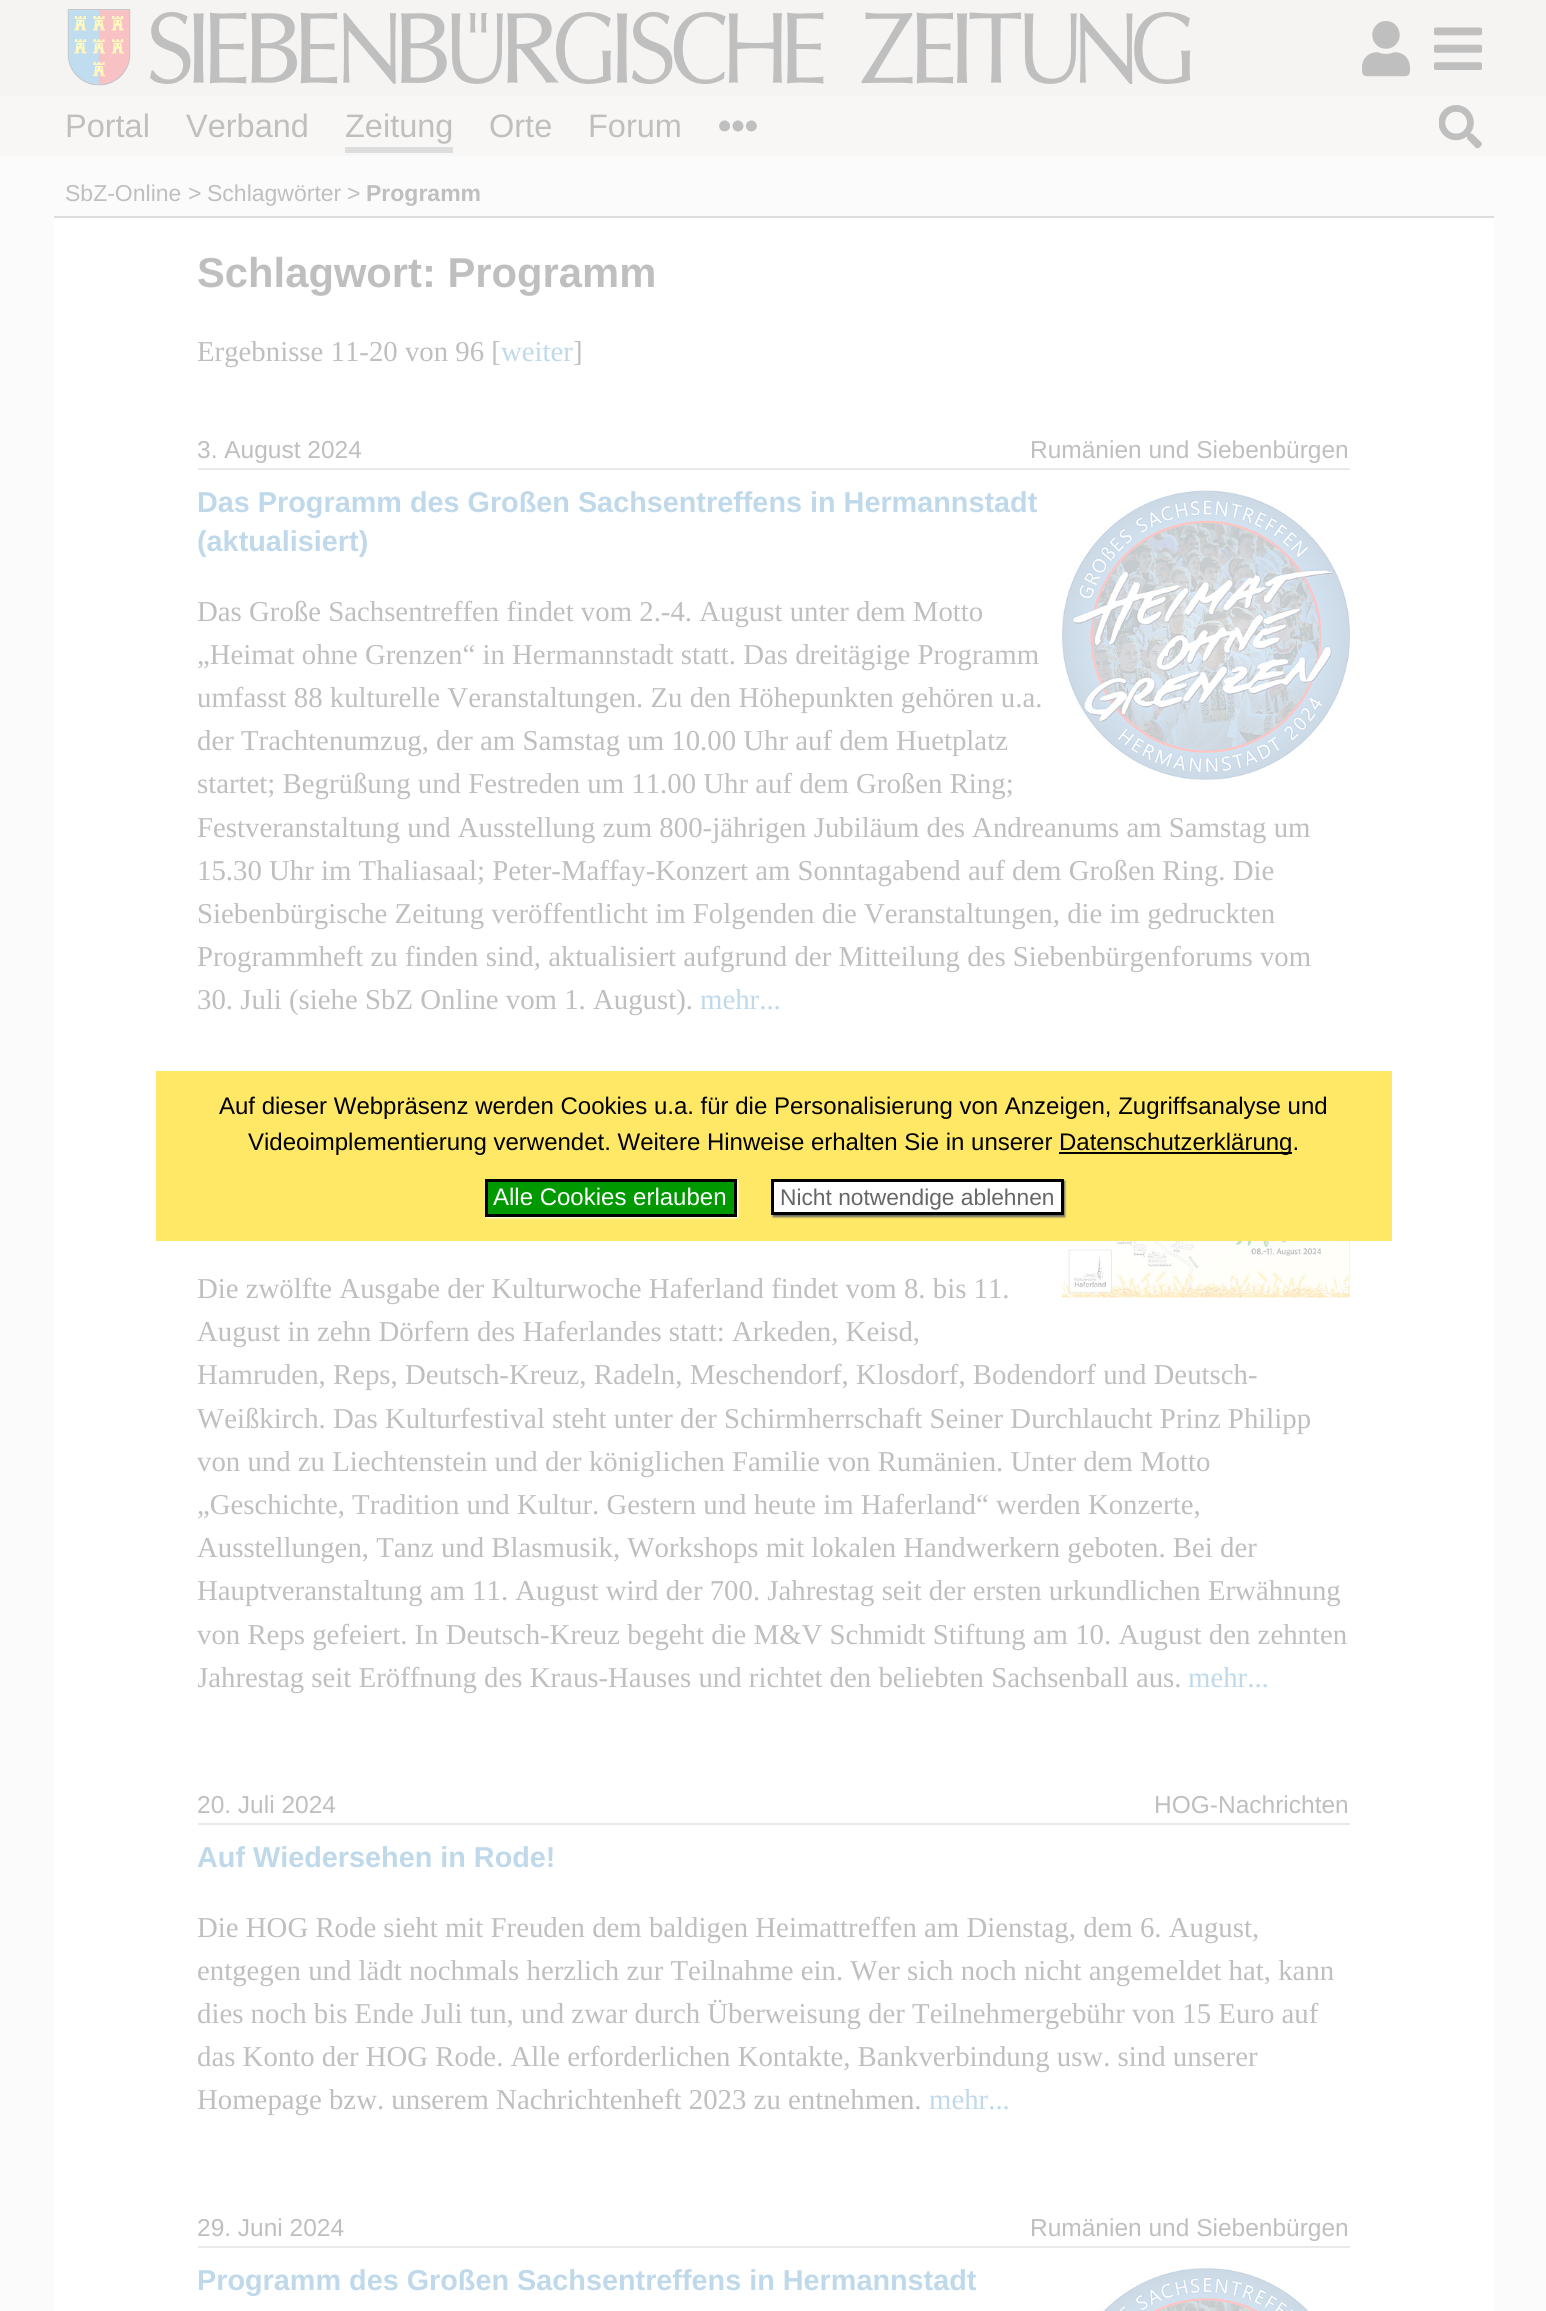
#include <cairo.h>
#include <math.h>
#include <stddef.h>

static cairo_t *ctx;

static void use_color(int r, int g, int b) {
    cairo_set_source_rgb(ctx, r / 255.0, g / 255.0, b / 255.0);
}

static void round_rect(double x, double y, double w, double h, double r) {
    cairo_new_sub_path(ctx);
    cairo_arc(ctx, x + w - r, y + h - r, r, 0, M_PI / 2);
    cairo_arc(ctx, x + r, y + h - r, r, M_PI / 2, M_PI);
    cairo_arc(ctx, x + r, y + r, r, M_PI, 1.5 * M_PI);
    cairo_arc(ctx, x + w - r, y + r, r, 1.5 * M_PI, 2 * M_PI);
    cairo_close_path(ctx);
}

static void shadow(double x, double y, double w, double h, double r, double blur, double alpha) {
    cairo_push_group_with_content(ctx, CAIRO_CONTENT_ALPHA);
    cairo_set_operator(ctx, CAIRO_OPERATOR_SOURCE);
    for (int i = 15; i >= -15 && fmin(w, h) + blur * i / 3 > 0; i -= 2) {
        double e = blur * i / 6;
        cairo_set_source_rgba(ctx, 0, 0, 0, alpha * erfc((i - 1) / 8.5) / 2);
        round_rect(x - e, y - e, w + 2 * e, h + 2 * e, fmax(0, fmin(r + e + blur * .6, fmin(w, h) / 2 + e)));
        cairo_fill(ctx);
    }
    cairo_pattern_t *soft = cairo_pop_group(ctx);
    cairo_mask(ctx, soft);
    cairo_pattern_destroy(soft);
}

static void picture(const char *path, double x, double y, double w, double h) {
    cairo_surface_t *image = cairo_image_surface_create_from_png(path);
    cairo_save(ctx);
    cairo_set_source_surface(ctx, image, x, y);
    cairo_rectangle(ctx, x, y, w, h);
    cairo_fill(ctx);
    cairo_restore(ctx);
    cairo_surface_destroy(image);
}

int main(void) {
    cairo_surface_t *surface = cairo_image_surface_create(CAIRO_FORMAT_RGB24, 1546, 2311);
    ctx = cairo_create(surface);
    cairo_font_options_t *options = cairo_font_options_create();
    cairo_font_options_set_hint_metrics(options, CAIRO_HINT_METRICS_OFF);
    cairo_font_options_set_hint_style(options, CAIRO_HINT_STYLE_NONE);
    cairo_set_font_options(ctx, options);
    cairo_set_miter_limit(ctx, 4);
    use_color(251, 251, 251);
    cairo_paint(ctx);
    picture("img1.png", 0, 0, 1546, 156);
    picture("img2.png", 1434, 27, 48, 43);
    picture("img3.png", 67, 9, 64, 77);
    picture("img4.png", 150, 12, 1041, 72);
    picture("img5.png", 1362, 21, 48, 56);
    cairo_select_font_face(ctx, "Liberation Sans", CAIRO_FONT_SLANT_NORMAL, CAIRO_FONT_WEIGHT_NORMAL);
    cairo_set_font_size(ctx, 32.5);
    use_color(191, 191, 191);
    cairo_move_to(ctx, 65, 137);
    cairo_show_text(ctx, "Portal");
    cairo_move_to(ctx, 186, 137);
    cairo_show_text(ctx, "Verband");
    use_color(221, 221, 221);
    cairo_rectangle(ctx, 345, 147, 108, 6);
    cairo_fill(ctx);
    use_color(191, 191, 191);
    cairo_move_to(ctx, 345, 137);
    cairo_show_text(ctx, "Zeitung");
    cairo_move_to(ctx, 489, 137);
    cairo_show_text(ctx, "Orte");
    cairo_move_to(ctx, 588, 137);
    cairo_show_text(ctx, "Forum");
    picture("img6.png", 719, 120, 38, 12);
    picture("img7.png", 1439, 105, 43, 44);
    use_color(255, 255, 255);
    cairo_rectangle(ctx, 54, 218, 1440, 2093);
    cairo_fill(ctx);
    use_color(221, 221, 221);
    cairo_rectangle(ctx, 54, 216, 1440, 2);
    cairo_fill(ctx);
    cairo_set_font_size(ctx, 23);
    use_color(191, 191, 191);
    cairo_move_to(ctx, 65, 201);
    cairo_show_text(ctx, "SbZ-Online");
    cairo_move_to(ctx, 188, 201);
    cairo_show_text(ctx, ">");
    cairo_move_to(ctx, 207, 201);
    cairo_show_text(ctx, "Schlagwörter");
    cairo_move_to(ctx, 347, 201);
    cairo_show_text(ctx, ">");
    cairo_select_font_face(ctx, "Liberation Sans", CAIRO_FONT_SLANT_NORMAL, CAIRO_FONT_WEIGHT_BOLD);
    cairo_move_to(ctx, 366, 201);
    cairo_show_text(ctx, "Programm");
    cairo_set_font_size(ctx, 41.75);
    cairo_move_to(ctx, 197, 287);
    cairo_show_text(ctx, "Schlagwort: Programm");
    cairo_select_font_face(ctx, "Liberation Serif", CAIRO_FONT_SLANT_NORMAL, CAIRO_FONT_WEIGHT_NORMAL);
    cairo_set_font_size(ctx, 28.8);
    cairo_move_to(ctx, 197, 361);
    cairo_show_text(ctx, "Ergebnisse 11-20 von 96 [");
    use_color(191, 217, 234);
    cairo_move_to(ctx, 501, 361);
    cairo_show_text(ctx, "weiter");
    use_color(191, 191, 191);
    cairo_move_to(ctx, 573, 361);
    cairo_show_text(ctx, "]");
    use_color(234, 234, 234);
    cairo_rectangle(ctx, 198, 468, 1152, 2);
    cairo_fill(ctx);
    cairo_select_font_face(ctx, "Liberation Sans", CAIRO_FONT_SLANT_NORMAL, CAIRO_FONT_WEIGHT_NORMAL);
    cairo_set_font_size(ctx, 24.5);
    use_color(191, 191, 191);
    cairo_move_to(ctx, 197, 458);
    cairo_show_text(ctx, "3. August 2024");
    cairo_move_to(ctx, 1030, 458);
    cairo_show_text(ctx, "Rumänien und Siebenbürgen");
    picture("img8.png", 1062, 490, 288, 290);
    cairo_select_font_face(ctx, "Liberation Sans", CAIRO_FONT_SLANT_NORMAL, CAIRO_FONT_WEIGHT_BOLD);
    cairo_set_font_size(ctx, 28.8);
    use_color(191, 217, 234);
    cairo_move_to(ctx, 197, 512);
    cairo_show_text(ctx, "Das Programm des Großen Sachsentreffens in Hermannstadt");
    cairo_move_to(ctx, 197, 551);
    cairo_show_text(ctx, "(aktualisiert)");
    cairo_select_font_face(ctx, "Liberation Serif", CAIRO_FONT_SLANT_NORMAL, CAIRO_FONT_WEIGHT_NORMAL);
    use_color(191, 191, 191);
    cairo_move_to(ctx, 197, 621);
    cairo_show_text(ctx, "Das Große Sachsentreffen findet vom 2.-4. August unter dem Motto");
    cairo_move_to(ctx, 197, 664);
    cairo_show_text(ctx, "„Heimat ohne Grenzen“ in Hermannstadt statt. Das dreitägige Programm");
    cairo_move_to(ctx, 197, 707);
    cairo_show_text(ctx, "umfasst 88 kulturelle Veranstaltungen. Zu den Höhepunkten gehören u.a.");
    cairo_move_to(ctx, 197, 750);
    cairo_show_text(ctx, "der Trachtenumzug, der am Samstag um 10.00 Uhr auf dem Huetplatz");
    cairo_move_to(ctx, 197, 793);
    cairo_show_text(ctx, "startet; Begrüßung und Festreden um 11.00 Uhr auf dem Großen Ring;");
    cairo_move_to(ctx, 197, 837);
    cairo_show_text(ctx, "Festveranstaltung und Ausstellung zum 800-jährigen Jubiläum des Andreanums am Samstag um");
    cairo_move_to(ctx, 197, 880);
    cairo_show_text(ctx, "15.30 Uhr im Thaliasaal; Peter-Maffay-Konzert am Sonntagabend auf dem Großen Ring. Die");
    cairo_move_to(ctx, 197, 923);
    cairo_show_text(ctx, "Siebenbürgische Zeitung veröffentlicht im Folgenden die Veranstaltungen, die im gedruckten");
    cairo_move_to(ctx, 197, 966);
    cairo_show_text(ctx, "Programmheft zu finden sind, aktualisiert aufgrund der Mitteilung des Siebenbürgenforums vom");
    cairo_move_to(ctx, 197, 1009);
    cairo_show_text(ctx, "30. Juli (siehe SbZ Online vom 1. August).");
    use_color(191, 217, 234);
    cairo_move_to(ctx, 700, 1009);
    cairo_show_text(ctx, "mehr...");
    picture("img9.png", 1062, 1241, 288, 57);
    use_color(191, 191, 191);
    cairo_move_to(ctx, 197, 1298);
    cairo_show_text(ctx, "Die zwölfte Ausgabe der Kulturwoche Haferland findet vom 8. bis 11.");
    cairo_move_to(ctx, 197, 1341);
    cairo_show_text(ctx, "August in zehn Dörfern des Haferlandes statt: Arkeden, Keisd,");
    cairo_move_to(ctx, 197, 1384);
    cairo_show_text(ctx, "Hamruden, Reps, Deutsch-Kreuz, Radeln, Meschendorf, Klosdorf, Bodendorf und Deutsch-");
    cairo_move_to(ctx, 197, 1428);
    cairo_show_text(ctx, "Weißkirch. Das Kulturfestival steht unter der Schirmherrschaft Seiner Durchlaucht Prinz Philipp");
    cairo_move_to(ctx, 197, 1471);
    cairo_show_text(ctx, "von und zu Liechtenstein und der königlichen Familie von Rumänien. Unter dem Motto");
    cairo_move_to(ctx, 197, 1514);
    cairo_show_text(ctx, "„Geschichte, Tradition und Kultur. Gestern und heute im Haferland“ werden Konzerte,");
    cairo_move_to(ctx, 197, 1557);
    cairo_show_text(ctx, "Ausstellungen, Tanz und Blasmusik, Workshops mit lokalen Handwerkern geboten. Bei der");
    cairo_move_to(ctx, 197, 1600);
    cairo_show_text(ctx, "Hauptveranstaltung am 11. August wird der 700. Jahrestag seit der ersten urkundlichen Erwähnung");
    cairo_move_to(ctx, 197, 1644);
    cairo_show_text(ctx, "von Reps gefeiert. In Deutsch-Kreuz begeht die M&V Schmidt Stiftung am 10. August den zehnten");
    cairo_save(ctx);
    cairo_rectangle(ctx, 198, 1109, 1152, 619);
    cairo_clip(ctx);
    cairo_move_to(ctx, 197, 1687);
    cairo_show_text(ctx, "Jahrestag seit Eröffnung des Kraus-Hauses und richtet den beliebten Sachsenball aus.");
    cairo_restore(ctx);
    use_color(191, 217, 234);
    cairo_move_to(ctx, 1188, 1687);
    cairo_show_text(ctx, "mehr...");
    use_color(234, 234, 234);
    cairo_rectangle(ctx, 198, 1823, 1152, 2);
    cairo_fill(ctx);
    cairo_select_font_face(ctx, "Liberation Sans", CAIRO_FONT_SLANT_NORMAL, CAIRO_FONT_WEIGHT_NORMAL);
    cairo_set_font_size(ctx, 24.5);
    use_color(191, 191, 191);
    cairo_move_to(ctx, 197, 1813);
    cairo_show_text(ctx, "20. Juli 2024");
    cairo_move_to(ctx, 1154, 1813);
    cairo_show_text(ctx, "HOG-Nachrichten");
    cairo_select_font_face(ctx, "Liberation Sans", CAIRO_FONT_SLANT_NORMAL, CAIRO_FONT_WEIGHT_BOLD);
    cairo_set_font_size(ctx, 28.8);
    use_color(191, 217, 234);
    cairo_move_to(ctx, 197, 1867);
    cairo_show_text(ctx, "Auf Wiedersehen in Rode!");
    cairo_select_font_face(ctx, "Liberation Serif", CAIRO_FONT_SLANT_NORMAL, CAIRO_FONT_WEIGHT_NORMAL);
    use_color(191, 191, 191);
    cairo_move_to(ctx, 197, 1937);
    cairo_show_text(ctx, "Die HOG Rode sieht mit Freuden dem baldigen Heimattreffen am Dienstag, dem 6. August,");
    cairo_move_to(ctx, 197, 1980);
    cairo_show_text(ctx, "entgegen und lädt nochmals herzlich zur Teilnahme ein. Wer sich noch nicht angemeldet hat, kann");
    cairo_move_to(ctx, 197, 2023);
    cairo_show_text(ctx, "dies noch bis Ende Juli tun, und zwar durch Überweisung der Teilnehmergebühr von 15 Euro auf");
    cairo_move_to(ctx, 197, 2066);
    cairo_show_text(ctx, "das Konto der HOG Rode. Alle erforderlichen Kontakte, Bankverbindung usw. sind unserer");
    cairo_move_to(ctx, 197, 2109);
    cairo_show_text(ctx, "Homepage bzw. unserem Nachrichtenheft 2023 zu entnehmen.");
    use_color(191, 217, 234);
    cairo_move_to(ctx, 929, 2109);
    cairo_show_text(ctx, "mehr...");
    use_color(234, 234, 234);
    cairo_rectangle(ctx, 198, 2246, 1152, 2);
    cairo_fill(ctx);
    cairo_select_font_face(ctx, "Liberation Sans", CAIRO_FONT_SLANT_NORMAL, CAIRO_FONT_WEIGHT_NORMAL);
    cairo_set_font_size(ctx, 24.5);
    use_color(191, 191, 191);
    cairo_move_to(ctx, 197, 2236);
    cairo_show_text(ctx, "29. Juni 2024");
    cairo_move_to(ctx, 1030, 2236);
    cairo_show_text(ctx, "Rumänien und Siebenbürgen");
    cairo_select_font_face(ctx, "Liberation Sans", CAIRO_FONT_SLANT_NORMAL, CAIRO_FONT_WEIGHT_BOLD);
    cairo_set_font_size(ctx, 28.8);
    use_color(191, 217, 234);
    cairo_move_to(ctx, 197, 2290);
    cairo_show_text(ctx, "Programm des Großen Sachsentreffens in Hermannstadt");
    picture("img10.png", 1097, 2268, 217, 43);
    use_color(255, 232, 102);
    cairo_rectangle(ctx, 156, 1071, 1236, 170);
    cairo_fill(ctx);
    cairo_select_font_face(ctx, "Liberation Sans", CAIRO_FONT_SLANT_NORMAL, CAIRO_FONT_WEIGHT_NORMAL);
    cairo_set_font_size(ctx, 24);
    use_color(0, 0, 0);
    cairo_move_to(ctx, 219, 1114);
    cairo_show_text(ctx, "Auf dieser Webpräsenz werden Cookies u.a. für die Personalisierung von Anzeigen, Zugriffsanalyse und");
    cairo_move_to(ctx, 248, 1150);
    cairo_show_text(ctx, "Videoimplementierung verwendet. Weitere Hinweise erhalten Sie in unserer");
    cairo_rectangle(ctx, 1059, 1152, 233, 2);
    cairo_fill(ctx);
    cairo_move_to(ctx, 1059, 1150);
    cairo_show_text(ctx, "Datenschutzerklärung.");
    use_color(255, 255, 255);
    shadow(486, 1181, 252, 37, 0, 1, 1);
    use_color(0, 153, 0);
    cairo_rectangle(ctx, 486.5, 1180.5, 249, 35);
    cairo_fill_preserve(ctx);
    use_color(0, 0, 0);
    cairo_set_line_width(ctx, 3);
    cairo_stroke(ctx);
    use_color(255, 255, 255);
    cairo_move_to(ctx, 493, 1205);
    cairo_show_text(ctx, "Alle Cookies erlauben");
    use_color(102, 102, 102);
    shadow(773, 1181, 292, 36, 0, 1, 1);
    use_color(255, 255, 255);
    cairo_rectangle(ctx, 772.5, 1180.5, 290, 33);
    cairo_fill_preserve(ctx);
    use_color(0, 0, 0);
    cairo_stroke(ctx);
    cairo_set_font_size(ctx, 22.75);
    use_color(102, 102, 102);
    cairo_move_to(ctx, 780, 1205);
    cairo_show_text(ctx, "Nicht notwendige ablehnen");
    cairo_surface_write_to_png(surface, "result.png");
    cairo_font_options_destroy(options);
    cairo_destroy(ctx);
    cairo_surface_destroy(surface);
    return 0;
}
